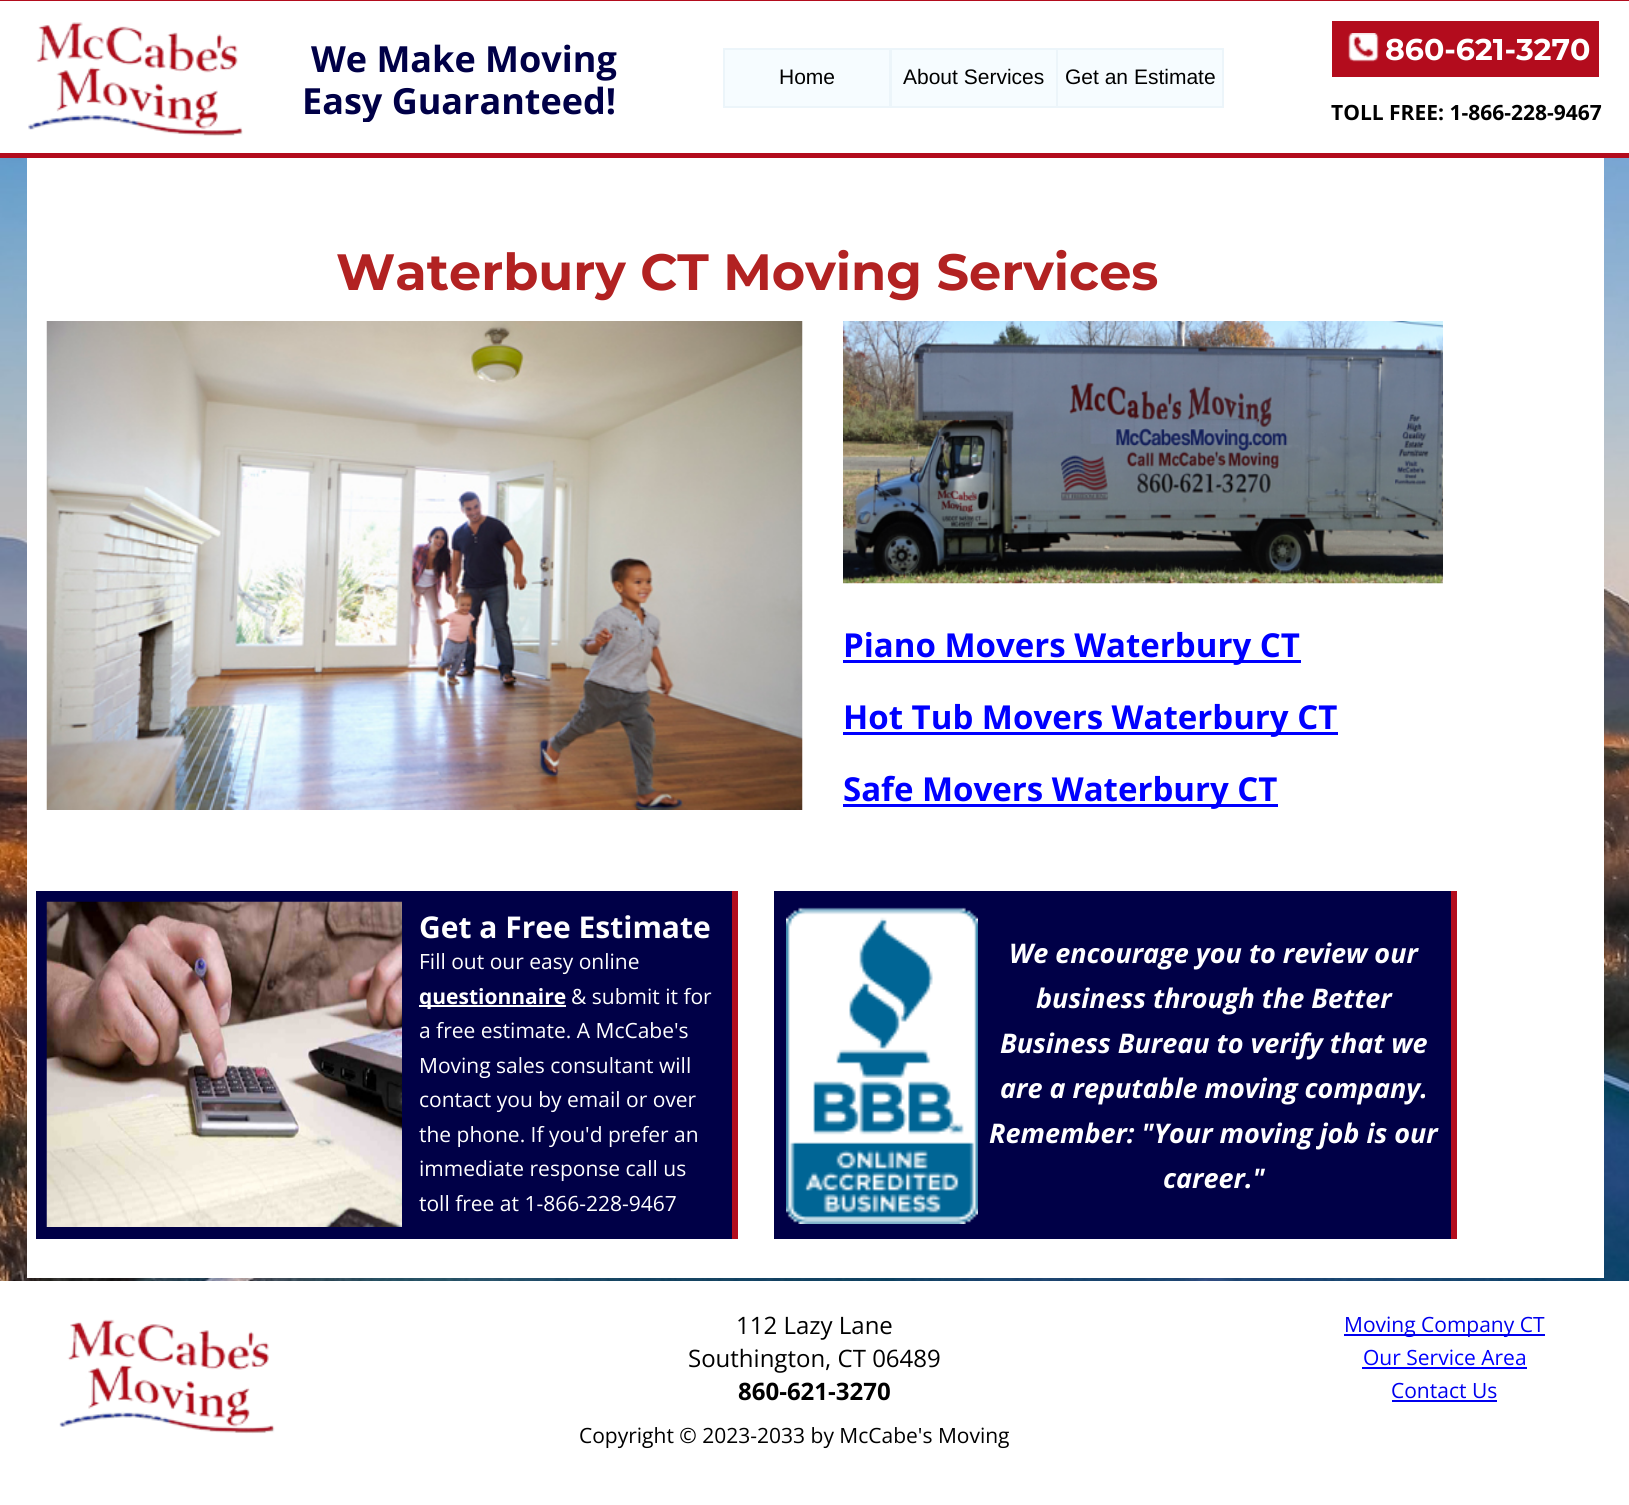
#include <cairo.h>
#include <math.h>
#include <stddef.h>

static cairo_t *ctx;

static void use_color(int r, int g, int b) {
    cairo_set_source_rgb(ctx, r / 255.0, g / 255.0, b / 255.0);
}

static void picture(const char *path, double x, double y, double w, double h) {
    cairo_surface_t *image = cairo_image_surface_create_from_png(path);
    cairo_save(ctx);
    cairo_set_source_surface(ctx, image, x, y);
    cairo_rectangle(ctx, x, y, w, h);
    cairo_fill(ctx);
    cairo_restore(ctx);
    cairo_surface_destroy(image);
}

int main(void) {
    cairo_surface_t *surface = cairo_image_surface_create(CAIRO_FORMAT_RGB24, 1629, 1505);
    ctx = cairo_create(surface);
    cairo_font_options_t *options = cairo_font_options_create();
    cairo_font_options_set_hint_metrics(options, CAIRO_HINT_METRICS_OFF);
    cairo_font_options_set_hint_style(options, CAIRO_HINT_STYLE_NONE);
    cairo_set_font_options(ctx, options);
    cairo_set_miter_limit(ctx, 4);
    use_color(255, 255, 255);
    cairo_paint(ctx);
    use_color(179, 12, 29);
    cairo_rectangle(ctx, 0, 0, 1629, 1);
    cairo_fill(ctx);
    cairo_rectangle(ctx, 0, 153, 1629, 5);
    cairo_fill(ctx);
    picture("img1.png", 28, 22, 215, 114);
    cairo_rectangle(ctx, 1332, 21, 267, 56);
    cairo_fill(ctx);
    cairo_select_font_face(ctx, "Open Sans", CAIRO_FONT_SLANT_NORMAL, CAIRO_FONT_WEIGHT_BOLD);
    cairo_set_font_size(ctx, 36);
    use_color(0, 0, 71);
    cairo_move_to(ctx, 311, 72);
    cairo_show_text(ctx, "We Make Moving");
    cairo_save(ctx);
    cairo_rectangle(ctx, 281, 38, 357, 84);
    cairo_clip(ctx);
    cairo_move_to(ctx, 302, 114);
    cairo_show_text(ctx, "Easy Guaranteed!");
    cairo_restore(ctx);
    use_color(246, 252, 255);
    cairo_rectangle(ctx, 724, 49, 166, 58);
    cairo_fill_preserve(ctx);
    use_color(236, 245, 250);
    cairo_stroke(ctx);
    cairo_select_font_face(ctx, "Liberation Sans", CAIRO_FONT_SLANT_NORMAL, CAIRO_FONT_WEIGHT_NORMAL);
    cairo_set_font_size(ctx, 21);
    use_color(0, 0, 0);
    cairo_move_to(ctx, 779, 84);
    cairo_show_text(ctx, "Home");
    use_color(246, 252, 255);
    cairo_rectangle(ctx, 891, 49, 166, 58);
    cairo_fill_preserve(ctx);
    use_color(236, 245, 250);
    cairo_stroke(ctx);
    use_color(0, 0, 0);
    cairo_move_to(ctx, 903, 84);
    cairo_show_text(ctx, "About Services");
    use_color(246, 252, 255);
    cairo_rectangle(ctx, 1057, 49, 166, 58);
    cairo_fill_preserve(ctx);
    use_color(236, 245, 250);
    cairo_stroke(ctx);
    use_color(0, 0, 0);
    cairo_move_to(ctx, 1065, 84);
    cairo_show_text(ctx, "Get an Estimate");
    picture("img2.png", 1348, 33, 31, 29);
    cairo_select_font_face(ctx, "Montserrat", CAIRO_FONT_SLANT_NORMAL, CAIRO_FONT_WEIGHT_BOLD);
    cairo_set_font_size(ctx, 30);
    use_color(255, 255, 255);
    cairo_move_to(ctx, 1385, 60);
    cairo_show_text(ctx, "860-621-3270");
    cairo_select_font_face(ctx, "Open Sans", CAIRO_FONT_SLANT_NORMAL, CAIRO_FONT_WEIGHT_BOLD);
    cairo_set_font_size(ctx, 21);
    use_color(0, 0, 0);
    cairo_move_to(ctx, 1331, 120);
    cairo_show_text(ctx, "TOLL FREE: 1-866-228-9467");
    picture("img8.png", 0, 158, 1629, 1123);
    use_color(255, 255, 255);
    cairo_rectangle(ctx, 27, 158, 1577, 1120);
    cairo_fill(ctx);
    cairo_select_font_face(ctx, "Montserrat", CAIRO_FONT_SLANT_NORMAL, CAIRO_FONT_WEIGHT_BOLD);
    cairo_set_font_size(ctx, 51);
    use_color(178, 34, 34);
    cairo_move_to(ctx, 336, 290);
    cairo_show_text(ctx, "Waterbury CT Moving Services");
    picture("img3.png", 46, 321, 757, 489);
    picture("img4.png", 843, 321, 600, 263);
    use_color(0, 0, 255);
    cairo_rectangle(ctx, 843, 660, 458, 3);
    cairo_fill(ctx);
    cairo_select_font_face(ctx, "Open Sans", CAIRO_FONT_SLANT_NORMAL, CAIRO_FONT_WEIGHT_BOLD);
    cairo_set_font_size(ctx, 33);
    cairo_move_to(ctx, 843, 657);
    cairo_show_text(ctx, "Piano Movers Waterbury CT");
    cairo_rectangle(ctx, 843, 732, 495, 3);
    cairo_fill(ctx);
    cairo_move_to(ctx, 843, 729);
    cairo_show_text(ctx, "Hot Tub Movers Waterbury CT");
    cairo_rectangle(ctx, 843, 804, 435, 3);
    cairo_fill(ctx);
    cairo_move_to(ctx, 843, 801);
    cairo_show_text(ctx, "Safe Movers Waterbury CT");
    use_color(0, 0, 71);
    cairo_rectangle(ctx, 36, 891, 696, 348);
    cairo_fill(ctx);
    use_color(179, 12, 29);
    cairo_rectangle(ctx, 732, 891, 6, 348);
    cairo_fill(ctx);
    use_color(0, 0, 71);
    cairo_rectangle(ctx, 774, 891, 677, 348);
    cairo_fill(ctx);
    use_color(179, 12, 29);
    cairo_rectangle(ctx, 1451, 891, 6, 348);
    cairo_fill(ctx);
    picture("img5.png", 46, 901, 356, 326);
    cairo_set_font_size(ctx, 30);
    use_color(255, 255, 255);
    cairo_move_to(ctx, 419, 938);
    cairo_show_text(ctx, "Get a Free Estimate");
    cairo_select_font_face(ctx, "Open Sans", CAIRO_FONT_SLANT_NORMAL, CAIRO_FONT_WEIGHT_NORMAL);
    cairo_set_font_size(ctx, 21);
    cairo_move_to(ctx, 419, 969);
    cairo_show_text(ctx, "Fill out our easy online");
    cairo_rectangle(ctx, 419, 1005, 147, 2);
    cairo_fill(ctx);
    cairo_select_font_face(ctx, "Open Sans", CAIRO_FONT_SLANT_NORMAL, CAIRO_FONT_WEIGHT_BOLD);
    cairo_move_to(ctx, 419, 1004);
    cairo_show_text(ctx, "questionnaire");
    cairo_select_font_face(ctx, "Open Sans", CAIRO_FONT_SLANT_NORMAL, CAIRO_FONT_WEIGHT_NORMAL);
    cairo_move_to(ctx, 571, 1004);
    cairo_show_text(ctx, "& submit it for");
    cairo_move_to(ctx, 419, 1038);
    cairo_show_text(ctx, "a free estimate. A McCabe's");
    cairo_move_to(ctx, 419, 1073);
    cairo_show_text(ctx, "Moving sales consultant will");
    cairo_move_to(ctx, 419, 1107);
    cairo_show_text(ctx, "contact you by email or over");
    cairo_move_to(ctx, 419, 1142);
    cairo_show_text(ctx, "the phone. If you'd prefer an");
    cairo_move_to(ctx, 419, 1176);
    cairo_show_text(ctx, "immediate response call us");
    cairo_move_to(ctx, 419, 1211);
    cairo_show_text(ctx, "toll free at 1-866-228-9467");
    picture("img6.png", 786, 907, 192, 317);
    cairo_select_font_face(ctx, "Open Sans", CAIRO_FONT_SLANT_ITALIC, CAIRO_FONT_WEIGHT_BOLD);
    cairo_set_font_size(ctx, 27);
    cairo_move_to(ctx, 1009, 963);
    cairo_show_text(ctx, "We encourage you to review our");
    cairo_move_to(ctx, 1036, 1008);
    cairo_show_text(ctx, "business through the Better");
    cairo_move_to(ctx, 1000, 1053);
    cairo_show_text(ctx, "Business Bureau to verify that we");
    cairo_move_to(ctx, 1000, 1098);
    cairo_show_text(ctx, "are a reputable moving company.");
    cairo_move_to(ctx, 989, 1143);
    cairo_show_text(ctx, "Remember: \"Your moving job is our");
    cairo_move_to(ctx, 1163, 1188);
    cairo_show_text(ctx, "career.\"");
    picture("img7.png", 59, 1319, 216, 115);
    cairo_select_font_face(ctx, "Open Sans", CAIRO_FONT_SLANT_NORMAL, CAIRO_FONT_WEIGHT_NORMAL);
    cairo_set_font_size(ctx, 24);
    use_color(0, 0, 0);
    cairo_move_to(ctx, 736, 1334);
    cairo_show_text(ctx, "112 Lazy Lane");
    cairo_move_to(ctx, 688, 1367);
    cairo_show_text(ctx, "Southington, CT 06489");
    cairo_select_font_face(ctx, "Open Sans", CAIRO_FONT_SLANT_NORMAL, CAIRO_FONT_WEIGHT_BOLD);
    cairo_move_to(ctx, 738, 1400);
    cairo_show_text(ctx, "860-621-3270");
    use_color(0, 0, 238);
    cairo_rectangle(ctx, 1344, 1334, 201, 2);
    cairo_fill(ctx);
    cairo_select_font_face(ctx, "Open Sans", CAIRO_FONT_SLANT_NORMAL, CAIRO_FONT_WEIGHT_NORMAL);
    cairo_set_font_size(ctx, 21);
    cairo_move_to(ctx, 1344, 1332);
    cairo_show_text(ctx, "Moving Company CT");
    use_color(0, 0, 255);
    cairo_move_to(ctx, 1363, 1365);
    cairo_show_text(ctx, "Our Service Area");
    cairo_rectangle(ctx, 1362, 1367, 165, 2);
    cairo_fill(ctx);
    use_color(0, 0, 238);
    cairo_move_to(ctx, 1391, 1398);
    cairo_show_text(ctx, "Contact Us");
    cairo_rectangle(ctx, 1392, 1400, 105, 2);
    cairo_fill(ctx);
    use_color(0, 0, 0);
    cairo_move_to(ctx, 579, 1443);
    cairo_show_text(ctx, "Copyright © 2023-2033 by McCabe's Moving");
    cairo_surface_write_to_png(surface, "result.png");
    cairo_font_options_destroy(options);
    cairo_destroy(ctx);
    cairo_surface_destroy(surface);
    return 0;
}
